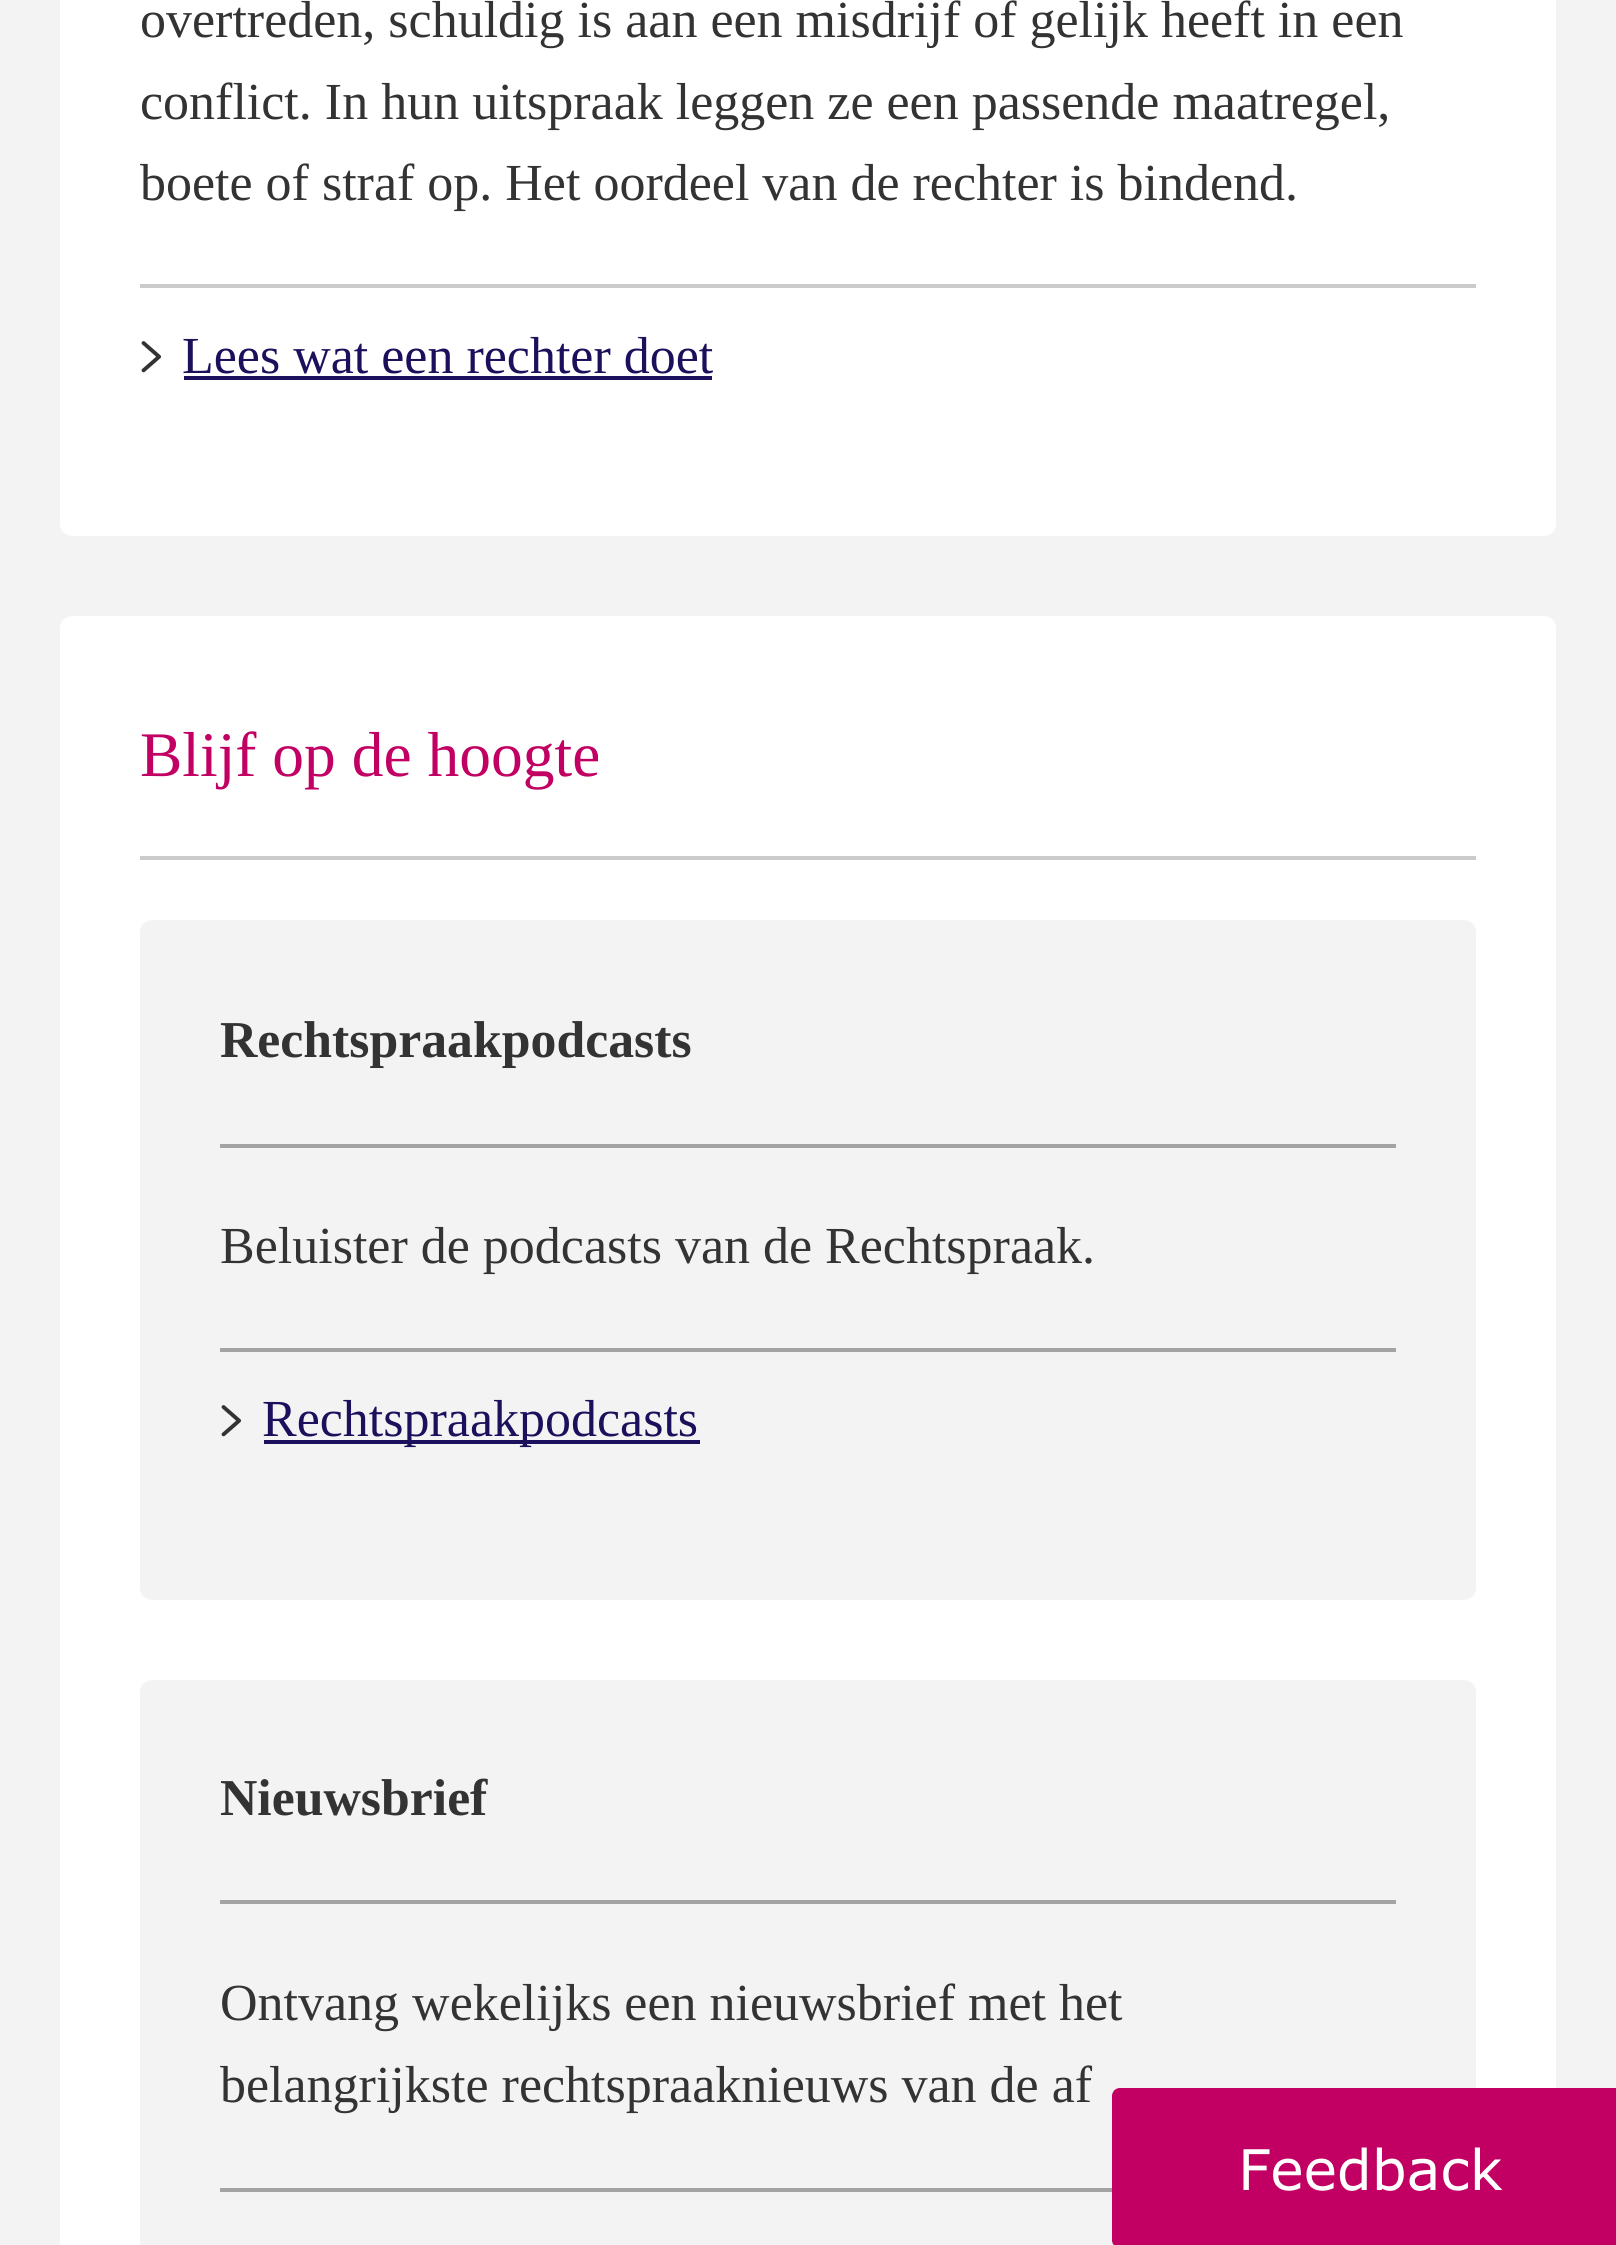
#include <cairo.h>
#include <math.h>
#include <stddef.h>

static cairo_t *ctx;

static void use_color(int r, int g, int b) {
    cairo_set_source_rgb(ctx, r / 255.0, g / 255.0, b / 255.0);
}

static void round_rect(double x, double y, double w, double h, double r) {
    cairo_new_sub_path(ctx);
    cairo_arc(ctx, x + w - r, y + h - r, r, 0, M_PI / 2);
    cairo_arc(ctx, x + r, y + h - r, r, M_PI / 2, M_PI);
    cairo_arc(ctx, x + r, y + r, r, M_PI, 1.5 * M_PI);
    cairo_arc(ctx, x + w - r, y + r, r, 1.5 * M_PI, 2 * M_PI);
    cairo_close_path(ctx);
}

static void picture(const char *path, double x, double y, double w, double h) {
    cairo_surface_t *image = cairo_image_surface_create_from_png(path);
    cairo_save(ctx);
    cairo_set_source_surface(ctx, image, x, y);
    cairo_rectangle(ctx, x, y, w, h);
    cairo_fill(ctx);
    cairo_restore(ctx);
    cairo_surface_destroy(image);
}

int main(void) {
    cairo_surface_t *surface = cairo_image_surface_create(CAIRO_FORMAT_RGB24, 1616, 2245);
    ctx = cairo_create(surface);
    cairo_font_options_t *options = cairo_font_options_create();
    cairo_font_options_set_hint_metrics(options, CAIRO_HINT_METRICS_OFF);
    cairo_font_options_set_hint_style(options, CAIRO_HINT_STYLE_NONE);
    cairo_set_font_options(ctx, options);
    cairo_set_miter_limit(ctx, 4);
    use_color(243, 243, 243);
    cairo_paint(ctx);
    use_color(255, 255, 255);
    round_rect(60, -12, 1496, 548, 12);
    cairo_fill(ctx);
    use_color(203, 203, 203);
    cairo_rectangle(ctx, 140, 284, 1336, 4);
    cairo_fill(ctx);
    cairo_select_font_face(ctx, "Liberation Serif", CAIRO_FONT_SLANT_NORMAL, CAIRO_FONT_WEIGHT_NORMAL);
    cairo_set_font_size(ctx, 52);
    use_color(51, 51, 51);
    cairo_move_to(ctx, 140, 37);
    cairo_show_text(ctx, "overtreden, schuldig is aan een misdrijf of gelijk heeft in een");
    cairo_move_to(ctx, 140, 119);
    cairo_show_text(ctx, "conflict. In hun uitspraak leggen ze een passende maatregel,");
    cairo_move_to(ctx, 140, 200);
    cairo_show_text(ctx, "boete of straf op. Het oordeel van de rechter is bindend.");
    picture("img1.png", 141, 341, 21, 32);
    use_color(27, 16, 92);
    cairo_move_to(ctx, 182, 373);
    cairo_show_text(ctx, "Lees wat een rechter doet");
    cairo_rectangle(ctx, 184, 376, 528, 4);
    cairo_fill(ctx);
    use_color(255, 255, 255);
    round_rect(60, 616, 1496, 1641, 12);
    cairo_fill(ctx);
    use_color(203, 203, 203);
    cairo_rectangle(ctx, 140, 856, 1336, 4);
    cairo_fill(ctx);
    cairo_set_font_size(ctx, 63.5);
    use_color(194, 0, 99);
    cairo_move_to(ctx, 140, 776);
    cairo_show_text(ctx, "Blijf op de hoogte");
    use_color(243, 243, 243);
    round_rect(140, 920, 1336, 680, 12);
    cairo_fill(ctx);
    use_color(162, 162, 162);
    cairo_rectangle(ctx, 220, 1144, 1176, 4);
    cairo_fill(ctx);
    cairo_select_font_face(ctx, "Liberation Serif", CAIRO_FONT_SLANT_NORMAL, CAIRO_FONT_WEIGHT_BOLD);
    cairo_set_font_size(ctx, 51.75);
    use_color(51, 51, 51);
    cairo_move_to(ctx, 220, 1057);
    cairo_show_text(ctx, "Rechtspraakpodcasts");
    use_color(162, 162, 162);
    cairo_rectangle(ctx, 220, 1348, 1176, 4);
    cairo_fill(ctx);
    cairo_select_font_face(ctx, "Liberation Serif", CAIRO_FONT_SLANT_NORMAL, CAIRO_FONT_WEIGHT_NORMAL);
    cairo_set_font_size(ctx, 52);
    use_color(51, 51, 51);
    cairo_move_to(ctx, 220, 1263);
    cairo_show_text(ctx, "Beluister de podcasts van de Rechtspraak.");
    picture("img2.png", 221, 1405, 21, 32);
    use_color(27, 16, 92);
    cairo_rectangle(ctx, 264, 1440, 436, 4);
    cairo_fill(ctx);
    cairo_move_to(ctx, 262, 1436);
    cairo_show_text(ctx, "Rechtspraakpodcasts");
    use_color(243, 243, 243);
    round_rect(140, 1680, 1336, 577, 12);
    cairo_fill(ctx);
    use_color(162, 162, 162);
    cairo_rectangle(ctx, 220, 1900, 1176, 4);
    cairo_fill(ctx);
    cairo_select_font_face(ctx, "Liberation Serif", CAIRO_FONT_SLANT_NORMAL, CAIRO_FONT_WEIGHT_BOLD);
    cairo_set_font_size(ctx, 51.75);
    use_color(51, 51, 51);
    cairo_move_to(ctx, 220, 1815);
    cairo_show_text(ctx, "Nieuwsbrief");
    use_color(162, 162, 162);
    cairo_rectangle(ctx, 220, 2188, 892, 4);
    cairo_fill(ctx);
    cairo_select_font_face(ctx, "Liberation Serif", CAIRO_FONT_SLANT_NORMAL, CAIRO_FONT_WEIGHT_NORMAL);
    cairo_set_font_size(ctx, 52);
    use_color(51, 51, 51);
    cairo_move_to(ctx, 220, 2020);
    cairo_show_text(ctx, "Ontvang wekelijks een nieuwsbrief met het");
    cairo_move_to(ctx, 220, 2102);
    cairo_show_text(ctx, "belangrijkste rechtspraaknieuws van de af");
    picture("img3.png", 1112, 2088, 504, 157);
    cairo_surface_write_to_png(surface, "result.png");
    cairo_font_options_destroy(options);
    cairo_destroy(ctx);
    cairo_surface_destroy(surface);
    return 0;
}
